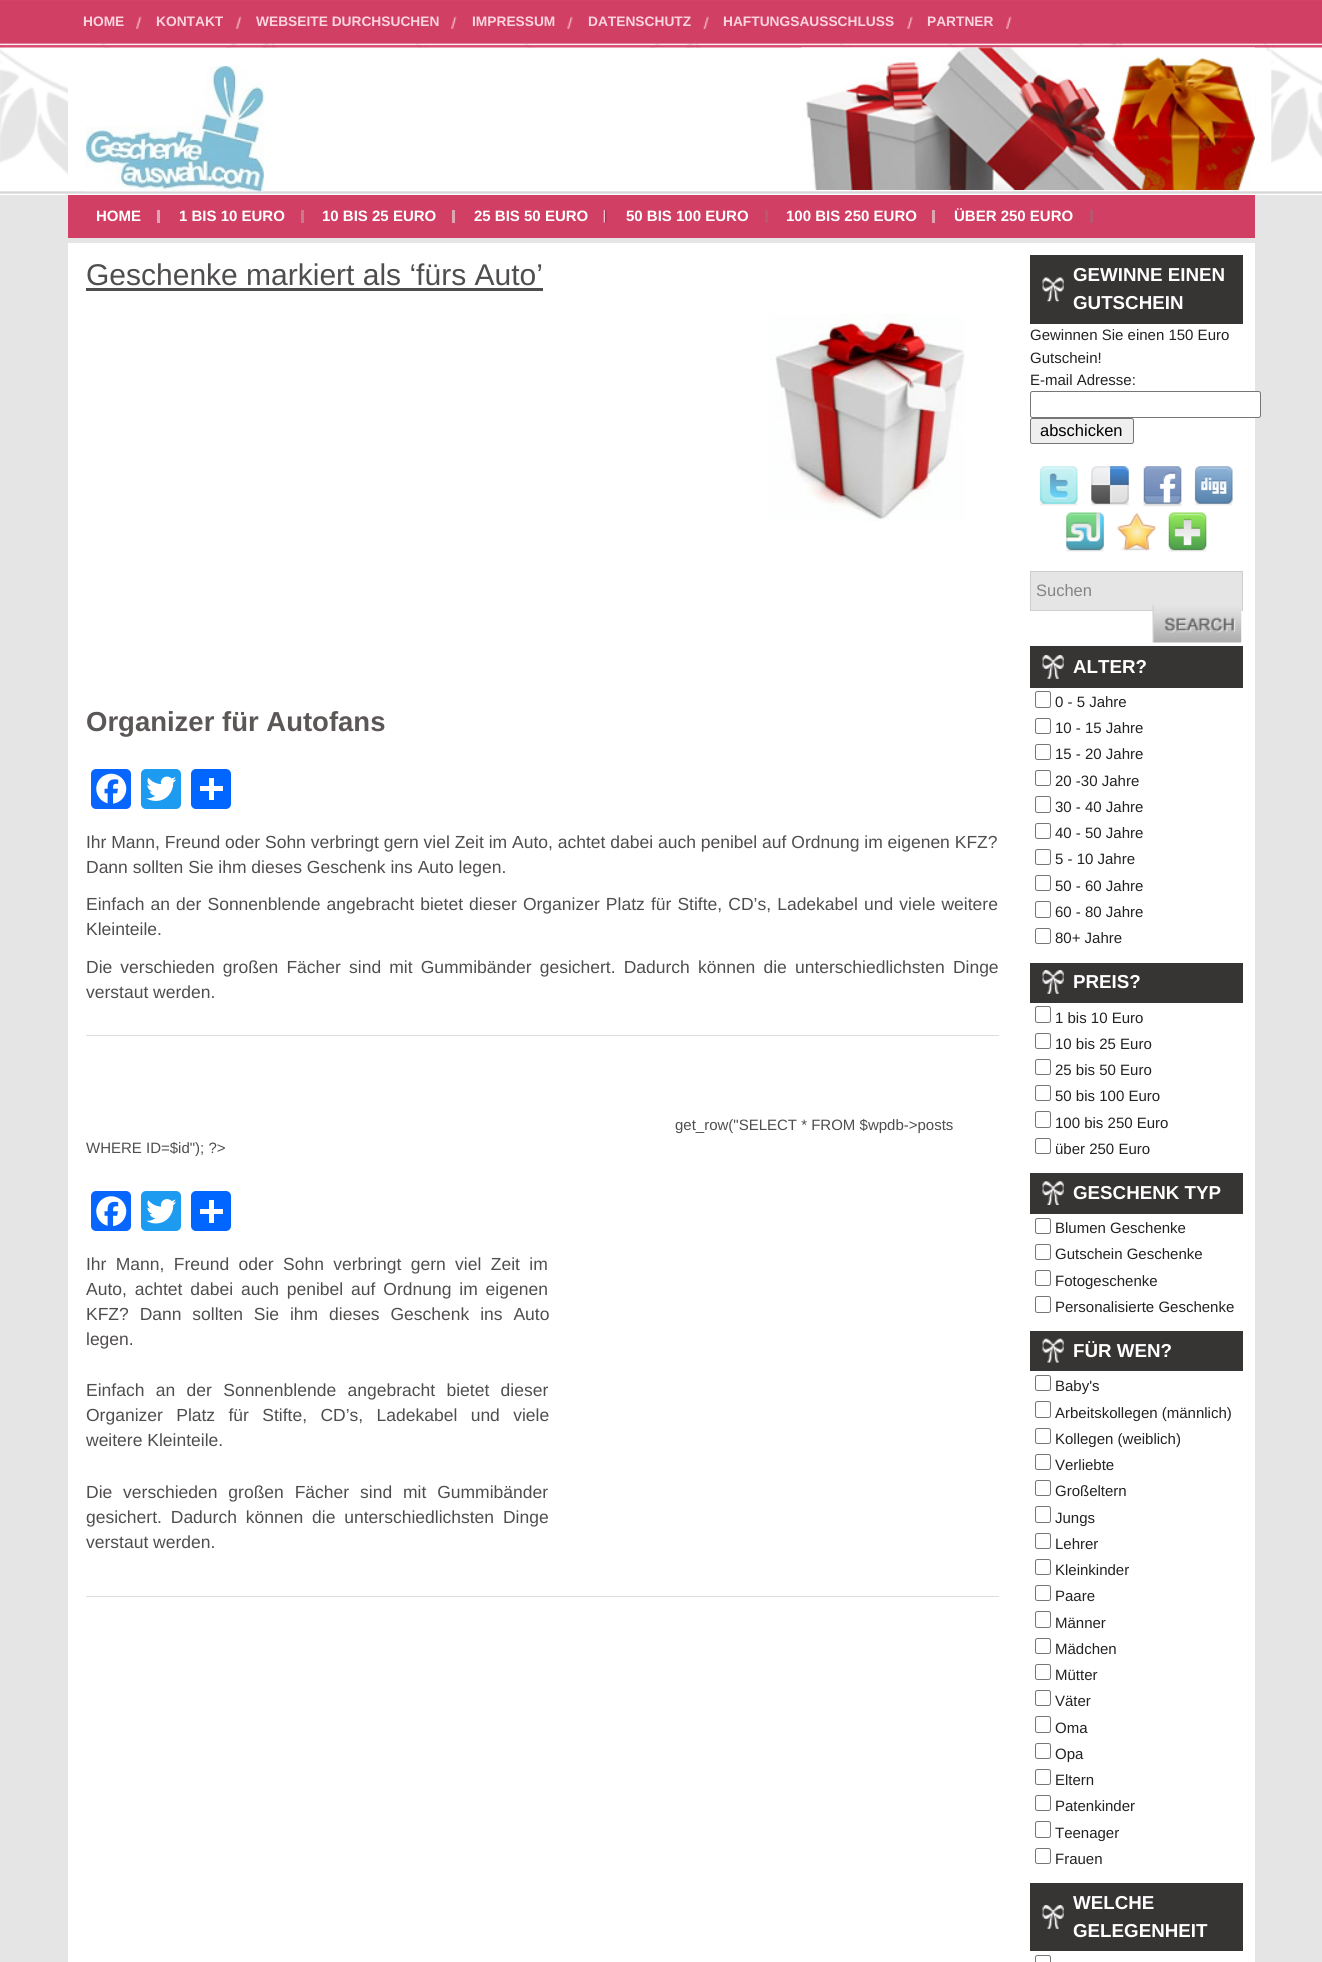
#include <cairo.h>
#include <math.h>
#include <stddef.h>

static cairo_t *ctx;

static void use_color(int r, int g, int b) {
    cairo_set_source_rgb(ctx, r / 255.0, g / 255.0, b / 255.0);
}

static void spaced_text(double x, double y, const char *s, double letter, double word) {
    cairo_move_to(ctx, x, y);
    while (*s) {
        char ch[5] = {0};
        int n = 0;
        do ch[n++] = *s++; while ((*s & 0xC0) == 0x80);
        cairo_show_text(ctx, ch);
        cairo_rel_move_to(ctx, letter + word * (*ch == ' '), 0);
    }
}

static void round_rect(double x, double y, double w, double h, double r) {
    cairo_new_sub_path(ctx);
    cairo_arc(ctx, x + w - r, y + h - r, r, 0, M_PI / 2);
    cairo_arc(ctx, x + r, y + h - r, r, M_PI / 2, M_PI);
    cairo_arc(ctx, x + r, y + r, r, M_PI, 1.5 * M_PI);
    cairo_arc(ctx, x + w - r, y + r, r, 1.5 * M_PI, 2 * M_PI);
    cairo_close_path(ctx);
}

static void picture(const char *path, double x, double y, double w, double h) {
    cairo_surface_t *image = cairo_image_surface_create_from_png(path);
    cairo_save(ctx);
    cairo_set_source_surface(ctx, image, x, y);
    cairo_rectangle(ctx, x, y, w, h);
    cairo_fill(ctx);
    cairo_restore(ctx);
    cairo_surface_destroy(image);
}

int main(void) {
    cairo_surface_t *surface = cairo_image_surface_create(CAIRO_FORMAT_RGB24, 1322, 1962);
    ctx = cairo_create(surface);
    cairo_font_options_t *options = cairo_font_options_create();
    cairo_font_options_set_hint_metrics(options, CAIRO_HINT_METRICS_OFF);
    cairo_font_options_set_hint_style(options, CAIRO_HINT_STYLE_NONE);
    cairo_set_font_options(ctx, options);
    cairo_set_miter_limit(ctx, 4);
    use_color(230, 229, 229);
    cairo_paint(ctx);
    picture("img1.png", 0, 0, 1322, 195);
    picture("img2.png", 136, 16, 6, 13);
    cairo_select_font_face(ctx, "Liberation Sans", CAIRO_FONT_SLANT_NORMAL, CAIRO_FONT_WEIGHT_BOLD);
    cairo_set_font_size(ctx, 13.75);
    use_color(252, 212, 222);
    cairo_move_to(ctx, 83, 26);
    cairo_show_text(ctx, "HOME");
    picture("img2.png", 236, 16, 6, 13);
    cairo_move_to(ctx, 156, 26);
    cairo_show_text(ctx, "KONTAKT");
    picture("img3.png", 451, 16, 6, 13);
    cairo_move_to(ctx, 256, 26);
    cairo_show_text(ctx, "WEBSEITE DURCHSUCHEN");
    picture("img4.png", 567, 16, 6, 13);
    cairo_move_to(ctx, 472, 26);
    cairo_show_text(ctx, "IMPRESSUM");
    picture("img5.png", 703, 16, 6, 13);
    cairo_move_to(ctx, 588, 26);
    cairo_show_text(ctx, "DATENSCHUTZ");
    picture("img4.png", 907, 16, 6, 13);
    cairo_move_to(ctx, 723, 26);
    cairo_show_text(ctx, "HAFTUNGSAUSSCHLUSS");
    picture("img3.png", 1006, 16, 6, 13);
    cairo_move_to(ctx, 927, 26);
    cairo_show_text(ctx, "PARTNER");
    use_color(255, 255, 255);
    cairo_rectangle(ctx, 68, 48, 734, 141);
    cairo_fill(ctx);
    picture("img6.png", 801, 47, 454, 143);
    picture("img7.png", 86, 66, 178, 126);
    use_color(210, 63, 100);
    cairo_rectangle(ctx, 68, 195, 1187, 43);
    cairo_fill(ctx);
    use_color(222, 165, 180);
    cairo_rectangle(ctx, 157, 210, 3, 13);
    cairo_fill(ctx);
    cairo_set_font_size(ctx, 15);
    use_color(255, 255, 255);
    cairo_move_to(ctx, 96, 221);
    cairo_show_text(ctx, "HOME");
    use_color(200, 120, 141);
    cairo_rectangle(ctx, 301, 210, 3, 13);
    cairo_fill(ctx);
    use_color(255, 255, 255);
    cairo_move_to(ctx, 179, 221);
    cairo_show_text(ctx, "1 BIS 10 EURO");
    use_color(222, 165, 180);
    cairo_rectangle(ctx, 452, 210, 3, 13);
    cairo_fill(ctx);
    use_color(255, 255, 255);
    cairo_move_to(ctx, 322, 221);
    cairo_show_text(ctx, "10 BIS 25 EURO");
    picture("img8.png", 603, 210, 4, 13);
    cairo_move_to(ctx, 474, 221);
    cairo_show_text(ctx, "25 BIS 50 EURO");
    use_color(183, 86, 111);
    cairo_rectangle(ctx, 765, 210, 3, 13);
    cairo_fill(ctx);
    use_color(255, 255, 255);
    cairo_move_to(ctx, 626, 221);
    cairo_show_text(ctx, "50 BIS 100 EURO");
    use_color(222, 165, 180);
    cairo_rectangle(ctx, 932, 210, 3, 13);
    cairo_fill(ctx);
    use_color(255, 255, 255);
    cairo_move_to(ctx, 786, 221);
    cairo_show_text(ctx, "100 BIS 250 EURO");
    use_color(183, 86, 111);
    cairo_rectangle(ctx, 1090, 210, 3, 13);
    cairo_fill(ctx);
    use_color(255, 255, 255);
    cairo_move_to(ctx, 954, 221);
    cairo_show_text(ctx, "ÜBER 250 EURO");
    cairo_rectangle(ctx, 68, 243, 1187, 1719);
    cairo_fill(ctx);
    cairo_select_font_face(ctx, "Liberation Sans", CAIRO_FONT_SLANT_NORMAL, CAIRO_FONT_WEIGHT_NORMAL);
    cairo_set_font_size(ctx, 30);
    use_color(80, 77, 77);
    cairo_move_to(ctx, 86, 285);
    cairo_show_text(ctx, "Geschenke markiert als ‘fürs Auto’");
    cairo_rectangle(ctx, 86, 288, 457, 3);
    cairo_fill(ctx);
    picture("img9.png", 769, 314, 196, 207);
    use_color(221, 221, 221);
    cairo_rectangle(ctx, 86, 1035, 913, 1);
    cairo_fill(ctx);
    cairo_select_font_face(ctx, "Liberation Sans", CAIRO_FONT_SLANT_NORMAL, CAIRO_FONT_WEIGHT_BOLD);
    cairo_set_font_size(ctx, 27.5);
    use_color(92, 87, 87);
    cairo_move_to(ctx, 86, 731);
    cairo_show_text(ctx, "Organizer für Autofans");
    use_color(8, 102, 255);
    round_rect(91, 769, 40, 40, 5);
    cairo_fill(ctx);
    picture("img10.png", 96, 773, 31, 31);
    use_color(29, 155, 240);
    round_rect(141, 769, 40, 40, 5);
    cairo_fill(ctx);
    picture("img11.png", 146, 776, 31, 25);
    use_color(1, 102, 255);
    round_rect(191, 769, 40, 40, 5);
    cairo_fill(ctx);
    use_color(255, 255, 255);
    cairo_rectangle(ctx, 209, 778, 5, 22);
    cairo_fill(ctx);
    cairo_rectangle(ctx, 200, 786, 23, 5);
    cairo_fill(ctx);
    cairo_select_font_face(ctx, "Liberation Sans", CAIRO_FONT_SLANT_NORMAL, CAIRO_FONT_WEIGHT_NORMAL);
    cairo_set_font_size(ctx, 17.5);
    use_color(80, 77, 77);
    cairo_move_to(ctx, 86, 848);
    cairo_show_text(ctx, "Ihr Mann, Freund oder Sohn verbringt gern viel Zeit im Auto, achtet dabei auch penibel auf Ordnung im eigenen KFZ?");
    cairo_move_to(ctx, 86, 873);
    cairo_show_text(ctx, "Dann sollten Sie ihm dieses Geschenk ins Auto legen.");
    spaced_text(86, 910, "Einfach an der Sonnenblende angebracht bietet dieser Organizer Platz für Stifte, CD’s, Ladekabel und viele weitere", 0, 1.25);
    cairo_move_to(ctx, 86, 935);
    cairo_show_text(ctx, "Kleinteile.");
    spaced_text(86, 973, "Die verschieden großen Fächer sind mit Gummibänder gesichert. Dadurch können die unterschiedlichsten Dinge", 0, 3.25);
    cairo_move_to(ctx, 86, 998);
    cairo_show_text(ctx, "verstaut werden.");
    cairo_set_font_size(ctx, 15);
    cairo_move_to(ctx, 675, 1130);
    cairo_show_text(ctx, "get_row(\"SELECT * FROM $wpdb->posts");
    cairo_move_to(ctx, 86, 1153);
    cairo_show_text(ctx, "WHERE ID=$id\"); ?>");
    use_color(8, 102, 255);
    round_rect(91, 1191, 40, 40, 5);
    cairo_fill(ctx);
    picture("img12.png", 96, 1196, 31, 31);
    use_color(29, 155, 240);
    round_rect(141, 1191, 40, 40, 5);
    cairo_fill(ctx);
    picture("img13.png", 146, 1199, 31, 25);
    use_color(1, 102, 255);
    round_rect(191, 1191, 40, 40, 5);
    cairo_fill(ctx);
    use_color(255, 255, 255);
    cairo_rectangle(ctx, 209, 1200, 5, 23);
    cairo_fill(ctx);
    cairo_rectangle(ctx, 200, 1209, 23, 5);
    cairo_fill(ctx);
    cairo_set_font_size(ctx, 17.5);
    use_color(80, 77, 77);
    spaced_text(86, 1270, "Ihr Mann, Freund oder Sohn verbringt gern viel Zeit im", 0, 4.5);
    spaced_text(86, 1295, "Auto, achtet dabei auch penibel auf Ordnung im eigenen", 0, 3);
    spaced_text(86, 1320, "KFZ? Dann sollten Sie ihm dieses Geschenk ins Auto", 0, 6);
    cairo_move_to(ctx, 86, 1345);
    cairo_show_text(ctx, "legen.");
    spaced_text(86, 1396, "Einfach an der Sonnenblende angebracht bietet dieser", 0, 6.5);
    spaced_text(86, 1421, "Organizer Platz für Stifte, CD’s, Ladekabel und viele", 0, 8.5);
    cairo_move_to(ctx, 86, 1446);
    cairo_show_text(ctx, "weitere Kleinteile.");
    spaced_text(86, 1498, "Die verschieden großen Fächer sind mit Gummibänder", 0, 6);
    spaced_text(86, 1523, "gesichert. Dadurch können die unterschiedlichsten Dinge", 0, 4);
    cairo_move_to(ctx, 86, 1548);
    cairo_show_text(ctx, "verstaut werden.");
    use_color(221, 221, 221);
    cairo_rectangle(ctx, 86, 1596, 913, 1);
    cairo_fill(ctx);
    use_color(55, 52, 52);
    cairo_rectangle(ctx, 1030, 255, 213, 69);
    cairo_fill(ctx);
    picture("img14.png", 1042, 277, 22, 25);
    cairo_select_font_face(ctx, "Liberation Sans", CAIRO_FONT_SLANT_NORMAL, CAIRO_FONT_WEIGHT_BOLD);
    cairo_set_font_size(ctx, 18.75);
    use_color(255, 255, 255);
    cairo_move_to(ctx, 1073, 281);
    cairo_show_text(ctx, "GEWINNE EINEN");
    cairo_move_to(ctx, 1073, 309);
    cairo_show_text(ctx, "GUTSCHEIN");
    cairo_select_font_face(ctx, "Liberation Sans", CAIRO_FONT_SLANT_NORMAL, CAIRO_FONT_WEIGHT_NORMAL);
    cairo_set_font_size(ctx, 15);
    use_color(34, 34, 34);
    cairo_move_to(ctx, 1030, 340);
    cairo_show_text(ctx, "Gewinnen Sie einen 150 Euro");
    cairo_move_to(ctx, 1030, 363);
    cairo_show_text(ctx, "Gutschein!");
    cairo_move_to(ctx, 1030, 385);
    cairo_show_text(ctx, "E-mail Adresse:");
    use_color(255, 255, 255);
    round_rect(1030.5, 391.5, 230, 26, 2);
    cairo_fill_preserve(ctx);
    use_color(118, 118, 118);
    cairo_set_line_width(ctx, 1);
    cairo_stroke(ctx);
    use_color(239, 239, 239);
    round_rect(1030.5, 418.5, 103, 25, 2);
    cairo_fill_preserve(ctx);
    use_color(118, 118, 118);
    cairo_stroke(ctx);
    cairo_set_font_size(ctx, 16.5);
    use_color(0, 0, 0);
    cairo_move_to(ctx, 1040, 436);
    cairo_show_text(ctx, "abschicken");
    picture("img15.png", 1039, 466, 39, 40);
    picture("img16.png", 1091, 466, 38, 40);
    picture("img17.png", 1143, 466, 39, 41);
    picture("img18.png", 1194, 466, 39, 40);
    picture("img19.png", 1066, 512, 38, 40);
    picture("img20.png", 1117, 513, 40, 38);
    picture("img21.png", 1168, 512, 39, 40);
    use_color(230, 229, 229);
    cairo_rectangle(ctx, 1030.5, 571.5, 212, 39);
    cairo_fill_preserve(ctx);
    use_color(207, 205, 205);
    cairo_stroke(ctx);
    use_color(132, 132, 132);
    cairo_move_to(ctx, 1036, 596);
    cairo_show_text(ctx, "Suchen");
    picture("img22.png", 1152, 605, 90, 38);
    use_color(55, 52, 52);
    cairo_rectangle(ctx, 1030, 646, 213, 42);
    cairo_fill(ctx);
    picture("img23.png", 1042, 655, 22, 24);
    cairo_select_font_face(ctx, "Liberation Sans", CAIRO_FONT_SLANT_NORMAL, CAIRO_FONT_WEIGHT_BOLD);
    cairo_set_font_size(ctx, 18.75);
    use_color(255, 255, 255);
    cairo_move_to(ctx, 1073, 673);
    cairo_show_text(ctx, "ALTER?");
    round_rect(1035.5, 691.5, 15, 16, 2);
    use_color(118, 118, 118);
    cairo_stroke(ctx);
    cairo_select_font_face(ctx, "Liberation Sans", CAIRO_FONT_SLANT_NORMAL, CAIRO_FONT_WEIGHT_NORMAL);
    cairo_set_font_size(ctx, 15);
    use_color(34, 34, 34);
    cairo_move_to(ctx, 1055, 707);
    cairo_show_text(ctx, "0 - 5 Jahre");
    round_rect(1035.5, 718.5, 15, 15, 2);
    use_color(118, 118, 118);
    cairo_stroke(ctx);
    use_color(34, 34, 34);
    cairo_move_to(ctx, 1055, 733);
    cairo_show_text(ctx, "10 - 15 Jahre");
    round_rect(1035.5, 744.5, 15, 15, 2);
    use_color(118, 118, 118);
    cairo_stroke(ctx);
    use_color(34, 34, 34);
    cairo_move_to(ctx, 1055, 759);
    cairo_show_text(ctx, "15 - 20 Jahre");
    round_rect(1035.5, 770.5, 15, 15, 2);
    use_color(118, 118, 118);
    cairo_stroke(ctx);
    use_color(34, 34, 34);
    cairo_move_to(ctx, 1055, 786);
    cairo_show_text(ctx, "20 -30 Jahre");
    round_rect(1035.5, 796.5, 15, 16, 2);
    use_color(118, 118, 118);
    cairo_stroke(ctx);
    use_color(34, 34, 34);
    cairo_move_to(ctx, 1055, 812);
    cairo_show_text(ctx, "30 - 40 Jahre");
    round_rect(1035.5, 823.5, 15, 15, 2);
    use_color(118, 118, 118);
    cairo_stroke(ctx);
    use_color(34, 34, 34);
    cairo_move_to(ctx, 1055, 838);
    cairo_show_text(ctx, "40 - 50 Jahre");
    round_rect(1035.5, 849.5, 15, 15, 2);
    use_color(118, 118, 118);
    cairo_stroke(ctx);
    use_color(34, 34, 34);
    cairo_move_to(ctx, 1055, 864);
    cairo_show_text(ctx, "5 - 10 Jahre");
    round_rect(1035.5, 875.5, 15, 15, 2);
    use_color(118, 118, 118);
    cairo_stroke(ctx);
    use_color(34, 34, 34);
    cairo_move_to(ctx, 1055, 891);
    cairo_show_text(ctx, "50 - 60 Jahre");
    round_rect(1035.5, 901.5, 15, 16, 2);
    use_color(118, 118, 118);
    cairo_stroke(ctx);
    use_color(34, 34, 34);
    cairo_move_to(ctx, 1055, 917);
    cairo_show_text(ctx, "60 - 80 Jahre");
    round_rect(1035.5, 928.5, 15, 15, 2);
    use_color(118, 118, 118);
    cairo_stroke(ctx);
    use_color(34, 34, 34);
    cairo_move_to(ctx, 1055, 943);
    cairo_show_text(ctx, "80+ Jahre");
    use_color(55, 52, 52);
    cairo_rectangle(ctx, 1030, 963, 213, 40);
    cairo_fill(ctx);
    picture("img23.png", 1042, 970, 22, 24);
    cairo_select_font_face(ctx, "Liberation Sans", CAIRO_FONT_SLANT_NORMAL, CAIRO_FONT_WEIGHT_BOLD);
    cairo_set_font_size(ctx, 18.75);
    use_color(255, 255, 255);
    cairo_move_to(ctx, 1073, 988);
    cairo_show_text(ctx, "PREIS?");
    round_rect(1035.5, 1006.5, 15, 16, 2);
    use_color(118, 118, 118);
    cairo_stroke(ctx);
    cairo_select_font_face(ctx, "Liberation Sans", CAIRO_FONT_SLANT_NORMAL, CAIRO_FONT_WEIGHT_NORMAL);
    cairo_set_font_size(ctx, 15);
    use_color(34, 34, 34);
    cairo_move_to(ctx, 1055, 1023);
    cairo_show_text(ctx, "1 bis 10 Euro");
    round_rect(1035.5, 1033.5, 15, 15, 2);
    use_color(118, 118, 118);
    cairo_stroke(ctx);
    use_color(34, 34, 34);
    cairo_move_to(ctx, 1055, 1049);
    cairo_show_text(ctx, "10 bis 25 Euro");
    round_rect(1035.5, 1059.5, 15, 15, 2);
    use_color(118, 118, 118);
    cairo_stroke(ctx);
    use_color(34, 34, 34);
    cairo_move_to(ctx, 1055, 1075);
    cairo_show_text(ctx, "25 bis 50 Euro");
    round_rect(1035.5, 1085.5, 15, 15, 2);
    use_color(118, 118, 118);
    cairo_stroke(ctx);
    use_color(34, 34, 34);
    cairo_move_to(ctx, 1055, 1101);
    cairo_show_text(ctx, "50 bis 100 Euro");
    round_rect(1035.5, 1111.5, 15, 16, 2);
    use_color(118, 118, 118);
    cairo_stroke(ctx);
    use_color(34, 34, 34);
    cairo_move_to(ctx, 1055, 1128);
    cairo_show_text(ctx, "100 bis 250 Euro");
    round_rect(1035.5, 1138.5, 15, 15, 2);
    use_color(118, 118, 118);
    cairo_stroke(ctx);
    use_color(34, 34, 34);
    cairo_move_to(ctx, 1055, 1154);
    cairo_show_text(ctx, "über 250 Euro");
    use_color(55, 52, 52);
    cairo_rectangle(ctx, 1030, 1173, 213, 41);
    cairo_fill(ctx);
    picture("img24.png", 1042, 1181, 22, 24);
    cairo_select_font_face(ctx, "Liberation Sans", CAIRO_FONT_SLANT_NORMAL, CAIRO_FONT_WEIGHT_BOLD);
    cairo_set_font_size(ctx, 18.75);
    use_color(255, 255, 255);
    cairo_move_to(ctx, 1073, 1199);
    cairo_show_text(ctx, "GESCHENK TYP");
    round_rect(1035.5, 1218.5, 15, 15, 2);
    use_color(118, 118, 118);
    cairo_stroke(ctx);
    cairo_select_font_face(ctx, "Liberation Sans", CAIRO_FONT_SLANT_NORMAL, CAIRO_FONT_WEIGHT_NORMAL);
    cairo_set_font_size(ctx, 15);
    use_color(34, 34, 34);
    cairo_move_to(ctx, 1055, 1233);
    cairo_show_text(ctx, "Blumen Geschenke");
    round_rect(1035.5, 1244.5, 15, 15, 2);
    use_color(118, 118, 118);
    cairo_stroke(ctx);
    use_color(34, 34, 34);
    cairo_move_to(ctx, 1055, 1259);
    cairo_show_text(ctx, "Gutschein Geschenke");
    round_rect(1035.5, 1270.5, 15, 15, 2);
    use_color(118, 118, 118);
    cairo_stroke(ctx);
    use_color(34, 34, 34);
    cairo_move_to(ctx, 1055, 1286);
    cairo_show_text(ctx, "Fotogeschenke");
    round_rect(1035.5, 1296.5, 15, 16, 2);
    use_color(118, 118, 118);
    cairo_stroke(ctx);
    use_color(34, 34, 34);
    cairo_move_to(ctx, 1055, 1312);
    cairo_show_text(ctx, "Personalisierte Geschenke");
    use_color(55, 52, 52);
    cairo_rectangle(ctx, 1030, 1331, 213, 40);
    cairo_fill(ctx);
    picture("img25.png", 1042, 1338, 22, 25);
    cairo_select_font_face(ctx, "Liberation Sans", CAIRO_FONT_SLANT_NORMAL, CAIRO_FONT_WEIGHT_BOLD);
    cairo_set_font_size(ctx, 18.75);
    use_color(255, 255, 255);
    cairo_move_to(ctx, 1073, 1357);
    cairo_show_text(ctx, "FÜR WEN?");
    round_rect(1035.5, 1375.5, 15, 15, 2);
    use_color(118, 118, 118);
    cairo_stroke(ctx);
    cairo_select_font_face(ctx, "Liberation Sans", CAIRO_FONT_SLANT_NORMAL, CAIRO_FONT_WEIGHT_NORMAL);
    cairo_set_font_size(ctx, 15);
    use_color(34, 34, 34);
    cairo_move_to(ctx, 1055, 1391);
    cairo_show_text(ctx, "Baby's");
    round_rect(1035.5, 1401.5, 15, 16, 2);
    use_color(118, 118, 118);
    cairo_stroke(ctx);
    use_color(34, 34, 34);
    cairo_move_to(ctx, 1055, 1418);
    cairo_show_text(ctx, "Arbeitskollegen (männlich)");
    round_rect(1035.5, 1428.5, 15, 15, 2);
    use_color(118, 118, 118);
    cairo_stroke(ctx);
    use_color(34, 34, 34);
    cairo_move_to(ctx, 1055, 1444);
    cairo_show_text(ctx, "Kollegen (weiblich)");
    round_rect(1035.5, 1454.5, 15, 15, 2);
    use_color(118, 118, 118);
    cairo_stroke(ctx);
    use_color(34, 34, 34);
    cairo_move_to(ctx, 1055, 1470);
    cairo_show_text(ctx, "Verliebte");
    round_rect(1035.5, 1480.5, 15, 15, 2);
    use_color(118, 118, 118);
    cairo_stroke(ctx);
    use_color(34, 34, 34);
    cairo_move_to(ctx, 1055, 1496);
    cairo_show_text(ctx, "Großeltern");
    round_rect(1035.5, 1506.5, 15, 16, 2);
    use_color(118, 118, 118);
    cairo_stroke(ctx);
    use_color(34, 34, 34);
    cairo_move_to(ctx, 1055, 1523);
    cairo_show_text(ctx, "Jungs");
    round_rect(1035.5, 1533.5, 15, 15, 2);
    use_color(118, 118, 118);
    cairo_stroke(ctx);
    use_color(34, 34, 34);
    cairo_move_to(ctx, 1055, 1549);
    cairo_show_text(ctx, "Lehrer");
    round_rect(1035.5, 1559.5, 15, 15, 2);
    use_color(118, 118, 118);
    cairo_stroke(ctx);
    use_color(34, 34, 34);
    cairo_move_to(ctx, 1055, 1575);
    cairo_show_text(ctx, "Kleinkinder");
    round_rect(1035.5, 1585.5, 15, 15, 2);
    use_color(118, 118, 118);
    cairo_stroke(ctx);
    use_color(34, 34, 34);
    cairo_move_to(ctx, 1055, 1601);
    cairo_show_text(ctx, "Paare");
    round_rect(1035.5, 1611.5, 15, 16, 2);
    use_color(118, 118, 118);
    cairo_stroke(ctx);
    use_color(34, 34, 34);
    cairo_move_to(ctx, 1055, 1628);
    cairo_show_text(ctx, "Männer");
    round_rect(1035.5, 1638.5, 15, 15, 2);
    use_color(118, 118, 118);
    cairo_stroke(ctx);
    use_color(34, 34, 34);
    cairo_move_to(ctx, 1055, 1654);
    cairo_show_text(ctx, "Mädchen");
    round_rect(1035.5, 1664.5, 15, 15, 2);
    use_color(118, 118, 118);
    cairo_stroke(ctx);
    use_color(34, 34, 34);
    cairo_move_to(ctx, 1055, 1680);
    cairo_show_text(ctx, "Mütter");
    round_rect(1035.5, 1690.5, 15, 15, 2);
    use_color(118, 118, 118);
    cairo_stroke(ctx);
    use_color(34, 34, 34);
    cairo_move_to(ctx, 1055, 1706);
    cairo_show_text(ctx, "Väter");
    round_rect(1035.5, 1716.5, 15, 16, 2);
    use_color(118, 118, 118);
    cairo_stroke(ctx);
    use_color(34, 34, 34);
    cairo_move_to(ctx, 1055, 1733);
    cairo_show_text(ctx, "Oma");
    round_rect(1035.5, 1743.5, 15, 15, 2);
    use_color(118, 118, 118);
    cairo_stroke(ctx);
    use_color(34, 34, 34);
    cairo_move_to(ctx, 1055, 1759);
    cairo_show_text(ctx, "Opa");
    round_rect(1035.5, 1769.5, 15, 15, 2);
    use_color(118, 118, 118);
    cairo_stroke(ctx);
    use_color(34, 34, 34);
    cairo_move_to(ctx, 1055, 1785);
    cairo_show_text(ctx, "Eltern");
    round_rect(1035.5, 1795.5, 15, 15, 2);
    use_color(118, 118, 118);
    cairo_stroke(ctx);
    use_color(34, 34, 34);
    cairo_move_to(ctx, 1055, 1811);
    cairo_show_text(ctx, "Patenkinder");
    round_rect(1035.5, 1821.5, 15, 16, 2);
    use_color(118, 118, 118);
    cairo_stroke(ctx);
    use_color(34, 34, 34);
    cairo_move_to(ctx, 1055, 1838);
    cairo_show_text(ctx, "Teenager");
    round_rect(1035.5, 1848.5, 15, 15, 2);
    use_color(118, 118, 118);
    cairo_stroke(ctx);
    use_color(34, 34, 34);
    cairo_move_to(ctx, 1055, 1864);
    cairo_show_text(ctx, "Frauen");
    use_color(55, 52, 52);
    cairo_rectangle(ctx, 1030, 1883, 213, 68);
    cairo_fill(ctx);
    picture("img23.png", 1042, 1905, 22, 24);
    cairo_select_font_face(ctx, "Liberation Sans", CAIRO_FONT_SLANT_NORMAL, CAIRO_FONT_WEIGHT_BOLD);
    cairo_set_font_size(ctx, 18.75);
    use_color(255, 255, 255);
    cairo_move_to(ctx, 1073, 1909);
    cairo_show_text(ctx, "WELCHE");
    cairo_move_to(ctx, 1073, 1937);
    cairo_show_text(ctx, "GELEGENHEIT");
    round_rect(1035.5, 1955.5, 15, 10, 2);
    use_color(118, 118, 118);
    cairo_stroke(ctx);
    cairo_surface_write_to_png(surface, "result.png");
    cairo_font_options_destroy(options);
    cairo_destroy(ctx);
    cairo_surface_destroy(surface);
    return 0;
}
